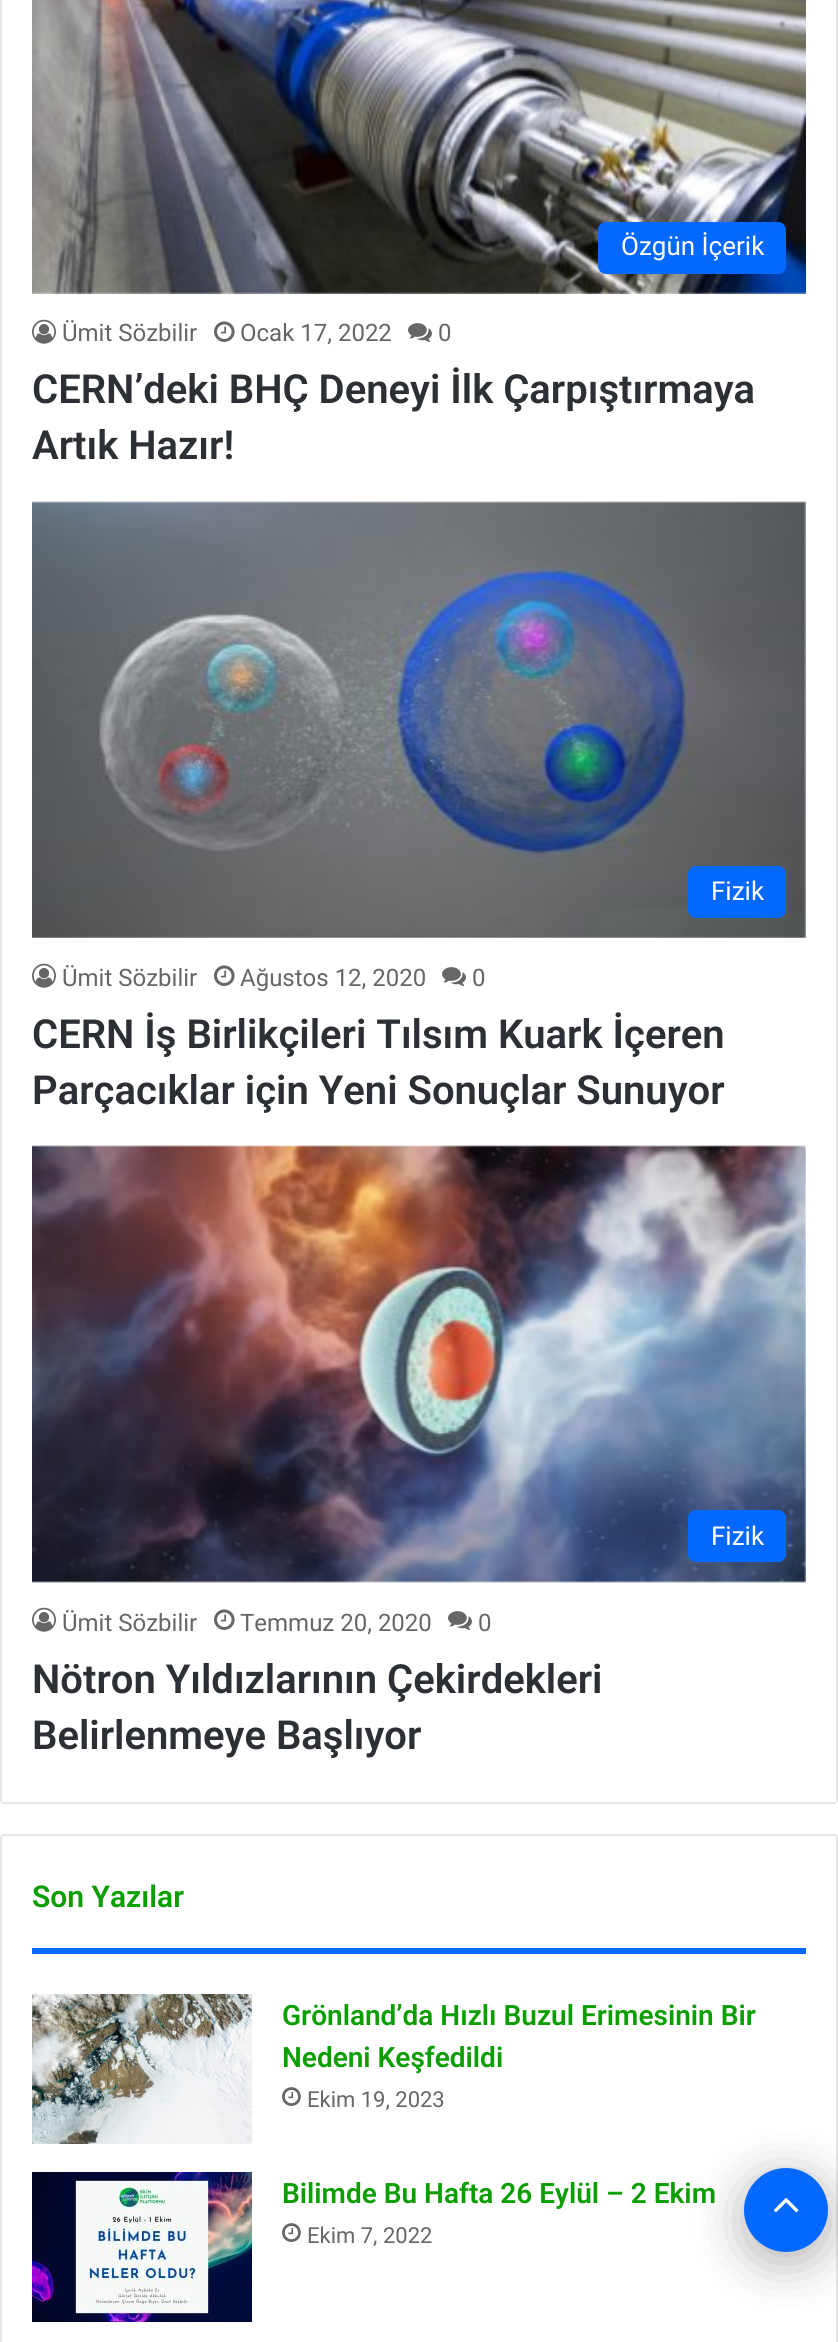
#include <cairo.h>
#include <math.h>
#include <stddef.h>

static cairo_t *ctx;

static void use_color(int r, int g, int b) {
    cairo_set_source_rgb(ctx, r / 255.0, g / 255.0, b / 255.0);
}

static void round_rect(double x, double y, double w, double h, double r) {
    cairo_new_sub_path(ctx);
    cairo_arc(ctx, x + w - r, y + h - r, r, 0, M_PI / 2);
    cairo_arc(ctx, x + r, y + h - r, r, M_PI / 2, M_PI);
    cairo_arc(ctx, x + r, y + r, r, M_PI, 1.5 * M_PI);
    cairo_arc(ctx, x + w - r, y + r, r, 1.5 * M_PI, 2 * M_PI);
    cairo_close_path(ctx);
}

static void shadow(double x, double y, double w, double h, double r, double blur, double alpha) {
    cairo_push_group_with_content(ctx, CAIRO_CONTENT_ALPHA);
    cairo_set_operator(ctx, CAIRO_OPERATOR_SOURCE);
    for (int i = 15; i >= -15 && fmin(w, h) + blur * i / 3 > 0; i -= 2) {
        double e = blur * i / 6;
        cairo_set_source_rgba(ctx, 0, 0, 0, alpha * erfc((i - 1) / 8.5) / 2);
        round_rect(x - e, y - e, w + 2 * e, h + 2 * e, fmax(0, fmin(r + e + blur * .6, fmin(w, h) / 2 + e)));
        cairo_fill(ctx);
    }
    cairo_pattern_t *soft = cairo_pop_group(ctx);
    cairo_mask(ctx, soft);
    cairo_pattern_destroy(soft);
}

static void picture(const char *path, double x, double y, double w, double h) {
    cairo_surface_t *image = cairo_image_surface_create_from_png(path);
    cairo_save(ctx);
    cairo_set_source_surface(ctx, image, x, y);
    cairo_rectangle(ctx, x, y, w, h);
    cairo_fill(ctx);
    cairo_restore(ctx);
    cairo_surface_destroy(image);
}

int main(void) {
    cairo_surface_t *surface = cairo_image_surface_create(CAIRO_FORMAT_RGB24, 838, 2342);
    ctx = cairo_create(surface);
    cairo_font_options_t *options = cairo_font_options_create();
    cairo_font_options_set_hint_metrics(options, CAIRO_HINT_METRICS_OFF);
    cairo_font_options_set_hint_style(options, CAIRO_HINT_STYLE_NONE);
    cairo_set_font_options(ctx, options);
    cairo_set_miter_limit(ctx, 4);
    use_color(255, 255, 255);
    cairo_paint(ctx);
    use_color(230, 230, 230);
    cairo_rectangle(ctx, 836, 0, 2, 1802);
    cairo_fill(ctx);
    cairo_rectangle(ctx, 2, 1802, 834, 2);
    cairo_fill(ctx);
    cairo_rectangle(ctx, 0, 0, 2, 1802);
    cairo_fill(ctx);
    picture("img1.png", 32, 0, 774, 294);
    use_color(6, 105, 255);
    round_rect(598, 222, 188, 52, 8);
    cairo_fill(ctx);
    cairo_select_font_face(ctx, "Roboto", CAIRO_FONT_SLANT_NORMAL, CAIRO_FONT_WEIGHT_NORMAL);
    cairo_set_font_size(ctx, 26);
    use_color(255, 255, 255);
    cairo_move_to(ctx, 621, 255);
    cairo_show_text(ctx, "Özgün İçerik");
    picture("img2.png", 32, 319, 24, 25);
    cairo_set_font_size(ctx, 24);
    use_color(102, 102, 102);
    cairo_move_to(ctx, 62, 341);
    cairo_show_text(ctx, "Ümit Sözbilir");
    picture("img3.png", 214, 321, 21, 21);
    cairo_move_to(ctx, 240, 341);
    cairo_show_text(ctx, "Ocak 17, 2022");
    picture("img4.png", 408, 323, 24, 19);
    cairo_move_to(ctx, 438, 341);
    cairo_show_text(ctx, "0");
    cairo_select_font_face(ctx, "Roboto SemiBold", CAIRO_FONT_SLANT_NORMAL, CAIRO_FONT_WEIGHT_NORMAL);
    cairo_set_font_size(ctx, 40);
    use_color(44, 47, 52);
    cairo_move_to(ctx, 32, 403);
    cairo_show_text(ctx, "CERN’deki BHÇ Deneyi İlk Çarpıştırmaya");
    cairo_move_to(ctx, 32, 459);
    cairo_show_text(ctx, "Artık Hazır!");
    picture("img5.png", 32, 501, 774, 437);
    use_color(6, 105, 255);
    round_rect(688, 866, 98, 52, 8);
    cairo_fill(ctx);
    cairo_select_font_face(ctx, "Roboto", CAIRO_FONT_SLANT_NORMAL, CAIRO_FONT_WEIGHT_NORMAL);
    cairo_set_font_size(ctx, 26);
    use_color(255, 255, 255);
    cairo_move_to(ctx, 711, 900);
    cairo_show_text(ctx, "Fizik");
    picture("img2.png", 32, 963, 24, 25);
    cairo_set_font_size(ctx, 24);
    use_color(102, 102, 102);
    cairo_move_to(ctx, 62, 986);
    cairo_show_text(ctx, "Ümit Sözbilir");
    picture("img3.png", 214, 965, 21, 21);
    cairo_move_to(ctx, 240, 986);
    cairo_show_text(ctx, "Ağustos 12, 2020");
    picture("img4.png", 442, 967, 24, 19);
    cairo_move_to(ctx, 472, 986);
    cairo_show_text(ctx, "0");
    cairo_select_font_face(ctx, "Roboto SemiBold", CAIRO_FONT_SLANT_NORMAL, CAIRO_FONT_WEIGHT_NORMAL);
    cairo_set_font_size(ctx, 40);
    use_color(44, 47, 52);
    cairo_move_to(ctx, 32, 1048);
    cairo_show_text(ctx, "CERN İş Birlikçileri Tılsım Kuark İçeren");
    cairo_move_to(ctx, 32, 1104);
    cairo_show_text(ctx, "Parçacıklar için Yeni Sonuçlar Sunuyor");
    picture("img6.png", 32, 1145, 774, 438);
    use_color(6, 105, 255);
    round_rect(688, 1510, 98, 52, 8);
    cairo_fill(ctx);
    cairo_select_font_face(ctx, "Roboto", CAIRO_FONT_SLANT_NORMAL, CAIRO_FONT_WEIGHT_NORMAL);
    cairo_set_font_size(ctx, 26);
    use_color(255, 255, 255);
    cairo_move_to(ctx, 711, 1545);
    cairo_show_text(ctx, "Fizik");
    picture("img2.png", 32, 1607, 24, 25);
    cairo_set_font_size(ctx, 24);
    use_color(102, 102, 102);
    cairo_move_to(ctx, 62, 1631);
    cairo_show_text(ctx, "Ümit Sözbilir");
    picture("img3.png", 214, 1609, 21, 21);
    cairo_move_to(ctx, 240, 1631);
    cairo_show_text(ctx, "Temmuz 20, 2020");
    picture("img4.png", 448, 1611, 24, 19);
    cairo_move_to(ctx, 478, 1631);
    cairo_show_text(ctx, "0");
    cairo_select_font_face(ctx, "Roboto SemiBold", CAIRO_FONT_SLANT_NORMAL, CAIRO_FONT_WEIGHT_NORMAL);
    cairo_set_font_size(ctx, 40);
    use_color(44, 47, 52);
    cairo_move_to(ctx, 32, 1693);
    cairo_show_text(ctx, "Nötron Yıldızlarının Çekirdekleri");
    cairo_move_to(ctx, 32, 1749);
    cairo_show_text(ctx, "Belirlenmeye Başlıyor");
    round_rect(1, 1835, 836, 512, 3);
    use_color(230, 230, 230);
    cairo_stroke(ctx);
    use_color(6, 105, 255);
    cairo_rectangle(ctx, 32, 1948, 774, 6);
    cairo_fill(ctx);
    cairo_set_font_size(ctx, 30);
    use_color(10, 158, 1);
    cairo_move_to(ctx, 32, 1907);
    cairo_show_text(ctx, "Son Yazılar");
    picture("img7.png", 32, 1994, 220, 150);
    cairo_set_font_size(ctx, 28);
    cairo_move_to(ctx, 282, 2025);
    cairo_show_text(ctx, "Grönland’da Hızlı Buzul Erimesinin Bir");
    cairo_move_to(ctx, 282, 2067);
    cairo_show_text(ctx, "Nedeni Keşfedildi");
    picture("img8.png", 282, 2087, 19, 19);
    cairo_select_font_face(ctx, "Roboto", CAIRO_FONT_SLANT_NORMAL, CAIRO_FONT_WEIGHT_NORMAL);
    cairo_set_font_size(ctx, 22);
    use_color(102, 102, 102);
    cairo_move_to(ctx, 307, 2107);
    cairo_show_text(ctx, "Ekim 19, 2023");
    picture("img9.png", 32, 2172, 220, 150);
    cairo_select_font_face(ctx, "Roboto SemiBold", CAIRO_FONT_SLANT_NORMAL, CAIRO_FONT_WEIGHT_NORMAL);
    cairo_set_font_size(ctx, 28);
    use_color(10, 158, 1);
    cairo_move_to(ctx, 282, 2203);
    cairo_show_text(ctx, "Bilimde Bu Hafta 26 Eylül – 2 Ekim");
    picture("img8.png", 282, 2223, 19, 19);
    cairo_select_font_face(ctx, "Roboto", CAIRO_FONT_SLANT_NORMAL, CAIRO_FONT_WEIGHT_NORMAL);
    cairo_set_font_size(ctx, 22);
    use_color(102, 102, 102);
    cairo_move_to(ctx, 307, 2243);
    cairo_show_text(ctx, "Ekim 7, 2022");
    use_color(0, 0, 0);
    shadow(744, 2178, 84, 84, 42, 25, 0.3);
    use_color(6, 105, 255);
    cairo_arc(ctx, 786, 2210, 42, 0, 2 * M_PI);
    cairo_fill(ctx);
    picture("img10.png", 773, 2198, 26, 15);
    cairo_surface_write_to_png(surface, "result.png");
    cairo_font_options_destroy(options);
    cairo_destroy(ctx);
    cairo_surface_destroy(surface);
    return 0;
}
